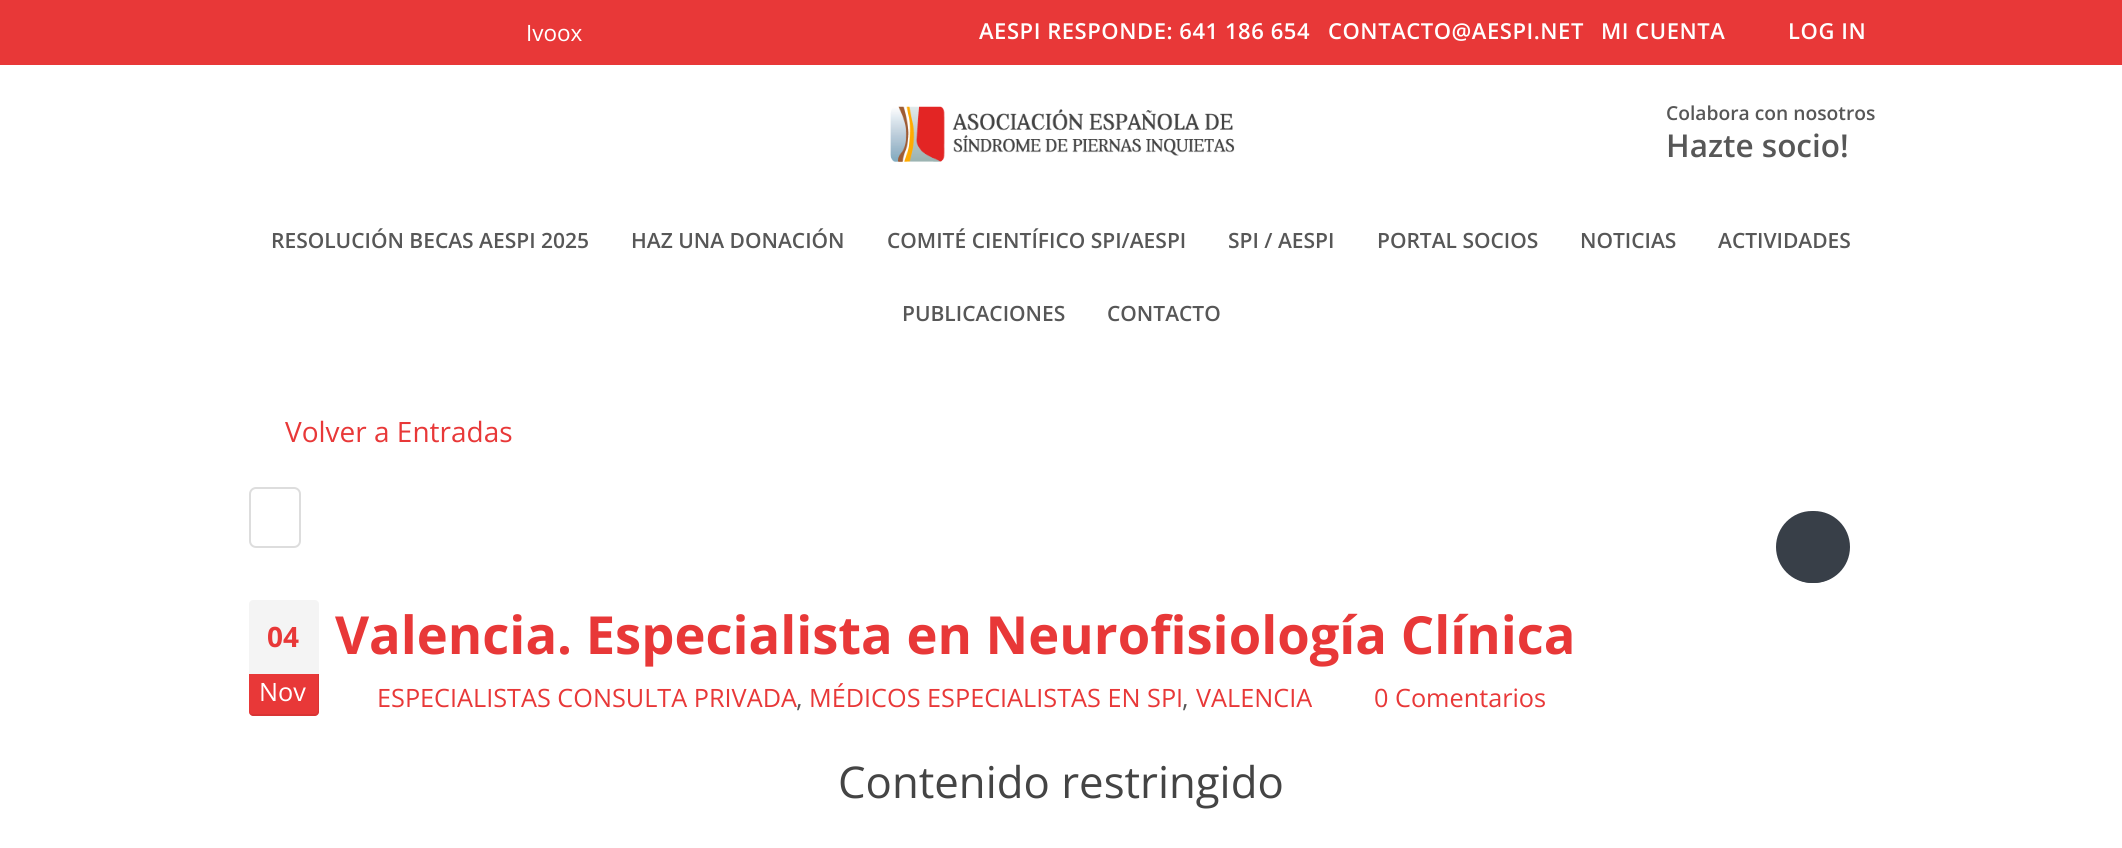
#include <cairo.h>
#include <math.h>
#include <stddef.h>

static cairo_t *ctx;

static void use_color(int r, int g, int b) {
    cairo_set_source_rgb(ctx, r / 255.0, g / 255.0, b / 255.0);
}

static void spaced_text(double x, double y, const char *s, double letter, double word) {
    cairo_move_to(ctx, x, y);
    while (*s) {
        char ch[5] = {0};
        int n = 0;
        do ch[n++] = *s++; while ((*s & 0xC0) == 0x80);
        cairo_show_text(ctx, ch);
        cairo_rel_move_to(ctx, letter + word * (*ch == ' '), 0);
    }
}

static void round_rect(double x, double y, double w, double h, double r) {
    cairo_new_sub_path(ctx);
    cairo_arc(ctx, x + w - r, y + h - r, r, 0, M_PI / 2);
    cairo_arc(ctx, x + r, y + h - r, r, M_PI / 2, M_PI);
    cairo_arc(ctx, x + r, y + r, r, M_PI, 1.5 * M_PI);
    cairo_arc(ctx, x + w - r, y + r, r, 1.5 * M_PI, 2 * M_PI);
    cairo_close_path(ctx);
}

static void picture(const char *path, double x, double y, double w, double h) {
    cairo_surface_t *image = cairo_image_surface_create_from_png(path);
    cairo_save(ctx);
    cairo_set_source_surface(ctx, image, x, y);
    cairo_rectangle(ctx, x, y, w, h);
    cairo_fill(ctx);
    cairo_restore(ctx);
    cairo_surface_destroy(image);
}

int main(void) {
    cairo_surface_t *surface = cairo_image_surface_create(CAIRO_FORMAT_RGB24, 2122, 848);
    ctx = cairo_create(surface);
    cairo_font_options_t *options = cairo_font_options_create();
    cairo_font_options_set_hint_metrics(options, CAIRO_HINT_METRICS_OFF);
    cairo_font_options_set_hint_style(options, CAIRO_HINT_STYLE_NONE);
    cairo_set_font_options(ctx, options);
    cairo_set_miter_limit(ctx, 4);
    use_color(255, 255, 255);
    cairo_paint(ctx);
    use_color(232, 56, 56);
    cairo_rectangle(ctx, 0, 0, 2122, 65);
    cairo_fill(ctx);
    cairo_select_font_face(ctx, "Open Sans", CAIRO_FONT_SLANT_NORMAL, CAIRO_FONT_WEIGHT_NORMAL);
    cairo_set_font_size(ctx, 22.5);
    use_color(255, 255, 255);
    cairo_move_to(ctx, 526, 41);
    cairo_show_text(ctx, "Ivoox");
    cairo_select_font_face(ctx, "Open Sans SemiBold", CAIRO_FONT_SLANT_NORMAL, CAIRO_FONT_WEIGHT_NORMAL);
    cairo_set_font_size(ctx, 22);
    spaced_text(979, 39, "AESPI RESPONDE: 641 186 654", 0.55, 0);
    spaced_text(1328, 39, "CONTACTO@AESPI.NET", 0.55, 0);
    spaced_text(1601, 39, "MI CUENTA", 0.55, 0);
    spaced_text(1788, 39, "LOG IN", 0.55, 0);
    picture("img1.png", 890, 106, 345, 56);
    cairo_set_font_size(ctx, 19.25);
    use_color(87, 87, 87);
    cairo_move_to(ctx, 1666, 120);
    cairo_show_text(ctx, "Colabora con nosotros");
    cairo_set_font_size(ctx, 31.5);
    cairo_move_to(ctx, 1666, 157);
    cairo_show_text(ctx, "Hazte socio!");
    cairo_set_font_size(ctx, 21);
    cairo_move_to(ctx, 271, 248);
    cairo_show_text(ctx, "RESOLUCIÓN BECAS AESPI 2025");
    cairo_move_to(ctx, 631, 248);
    cairo_show_text(ctx, "HAZ UNA DONACIÓN");
    cairo_move_to(ctx, 887, 248);
    cairo_show_text(ctx, "COMITÉ CIENTÍFICO SPI/AESPI");
    cairo_move_to(ctx, 1228, 248);
    cairo_show_text(ctx, "SPI / AESPI");
    cairo_move_to(ctx, 1377, 248);
    cairo_show_text(ctx, "PORTAL SOCIOS");
    cairo_move_to(ctx, 1580, 248);
    cairo_show_text(ctx, "NOTICIAS");
    cairo_move_to(ctx, 1718, 248);
    cairo_show_text(ctx, "ACTIVIDADES");
    cairo_move_to(ctx, 902, 321);
    cairo_show_text(ctx, "PUBLICACIONES");
    cairo_move_to(ctx, 1107, 321);
    cairo_show_text(ctx, "CONTACTO");
    cairo_select_font_face(ctx, "Open Sans", CAIRO_FONT_SLANT_NORMAL, CAIRO_FONT_WEIGHT_NORMAL);
    cairo_set_font_size(ctx, 28);
    use_color(232, 56, 56);
    cairo_move_to(ctx, 285, 442);
    cairo_show_text(ctx, "Volver a Entradas");
    round_rect(250, 488, 50, 59, 6);
    use_color(221, 221, 221);
    cairo_stroke(ctx);
    use_color(56, 63, 72);
    round_rect(1776, 511, 74, 72, 36);
    cairo_fill(ctx);
    cairo_arc(ctx, 1813, 548, 35, 0, 2 * M_PI);
    cairo_fill(ctx);
    use_color(244, 244, 244);
    cairo_new_path(ctx);
    cairo_move_to(ctx, 253, 600);
    cairo_line_to(ctx, 315, 600);
    cairo_curve_to(ctx, 317, 600, 319, 602, 319, 604);
    cairo_line_to(ctx, 319, 674);
    cairo_line_to(ctx, 249, 674);
    cairo_line_to(ctx, 249, 604);
    cairo_curve_to(ctx, 249, 602, 251, 600, 253, 600);
    cairo_close_path(ctx);
    cairo_fill(ctx);
    cairo_select_font_face(ctx, "Open Sans", CAIRO_FONT_SLANT_NORMAL, CAIRO_FONT_WEIGHT_BOLD);
    use_color(232, 56, 56);
    cairo_move_to(ctx, 267, 647);
    cairo_show_text(ctx, "04");
    cairo_new_path(ctx);
    cairo_move_to(ctx, 249, 674);
    cairo_line_to(ctx, 319, 674);
    cairo_line_to(ctx, 319, 712);
    cairo_curve_to(ctx, 319, 714, 317, 716, 315, 716);
    cairo_line_to(ctx, 253, 716);
    cairo_curve_to(ctx, 251, 716, 249, 714, 249, 712);
    cairo_close_path(ctx);
    cairo_fill(ctx);
    cairo_set_source_rgba(ctx, 0, 0, 0, 0.07);
    cairo_new_path(ctx);
    cairo_move_to(ctx, 249, 713);
    cairo_curve_to(ctx, 249, 714, 250, 715, 252, 716);
    cairo_line_to(ctx, 315, 716);
    cairo_line_to(ctx, 318, 715);
    cairo_line_to(ctx, 319, 713);
    cairo_line_to(ctx, 319, 674);
    cairo_line_to(ctx, 318, 674);
    cairo_line_to(ctx, 318, 710);
    cairo_curve_to(ctx, 318, 712, 317, 714, 315, 714);
    cairo_line_to(ctx, 252, 714);
    cairo_curve_to(ctx, 251, 714, 250, 713, 249, 713);
    cairo_close_path(ctx);
    cairo_fill(ctx);
    cairo_select_font_face(ctx, "Open Sans", CAIRO_FONT_SLANT_NORMAL, CAIRO_FONT_WEIGHT_NORMAL);
    cairo_set_font_size(ctx, 25.25);
    use_color(255, 255, 255);
    cairo_move_to(ctx, 259, 701);
    cairo_show_text(ctx, "Nov");
    cairo_select_font_face(ctx, "Open Sans", CAIRO_FONT_SLANT_NORMAL, CAIRO_FONT_WEIGHT_BOLD);
    cairo_set_font_size(ctx, 52.5);
    use_color(232, 56, 56);
    cairo_move_to(ctx, 335, 654);
    cairo_show_text(ctx, "Valencia. Especialista en Neurofisiología Clínica");
    cairo_select_font_face(ctx, "Open Sans", CAIRO_FONT_SLANT_NORMAL, CAIRO_FONT_WEIGHT_NORMAL);
    cairo_set_font_size(ctx, 25.25);
    cairo_move_to(ctx, 377, 707);
    cairo_show_text(ctx, "ESPECIALISTAS CONSULTA PRIVADA");
    use_color(87, 87, 87);
    cairo_move_to(ctx, 796, 707);
    cairo_show_text(ctx, ",");
    use_color(232, 56, 56);
    cairo_move_to(ctx, 809, 707);
    cairo_show_text(ctx, "MÉDICOS ESPECIALISTAS EN SPI");
    use_color(87, 87, 87);
    cairo_move_to(ctx, 1182, 707);
    cairo_show_text(ctx, ",");
    use_color(232, 56, 56);
    cairo_move_to(ctx, 1196, 707);
    cairo_show_text(ctx, "VALENCIA");
    cairo_move_to(ctx, 1374, 707);
    cairo_show_text(ctx, "0 Comentarios");
    cairo_set_font_size(ctx, 43.75);
    use_color(68, 68, 68);
    cairo_move_to(ctx, 838, 798);
    cairo_show_text(ctx, "Contenido restringido");
    cairo_surface_write_to_png(surface, "result.png");
    cairo_font_options_destroy(options);
    cairo_destroy(ctx);
    cairo_surface_destroy(surface);
    return 0;
}
